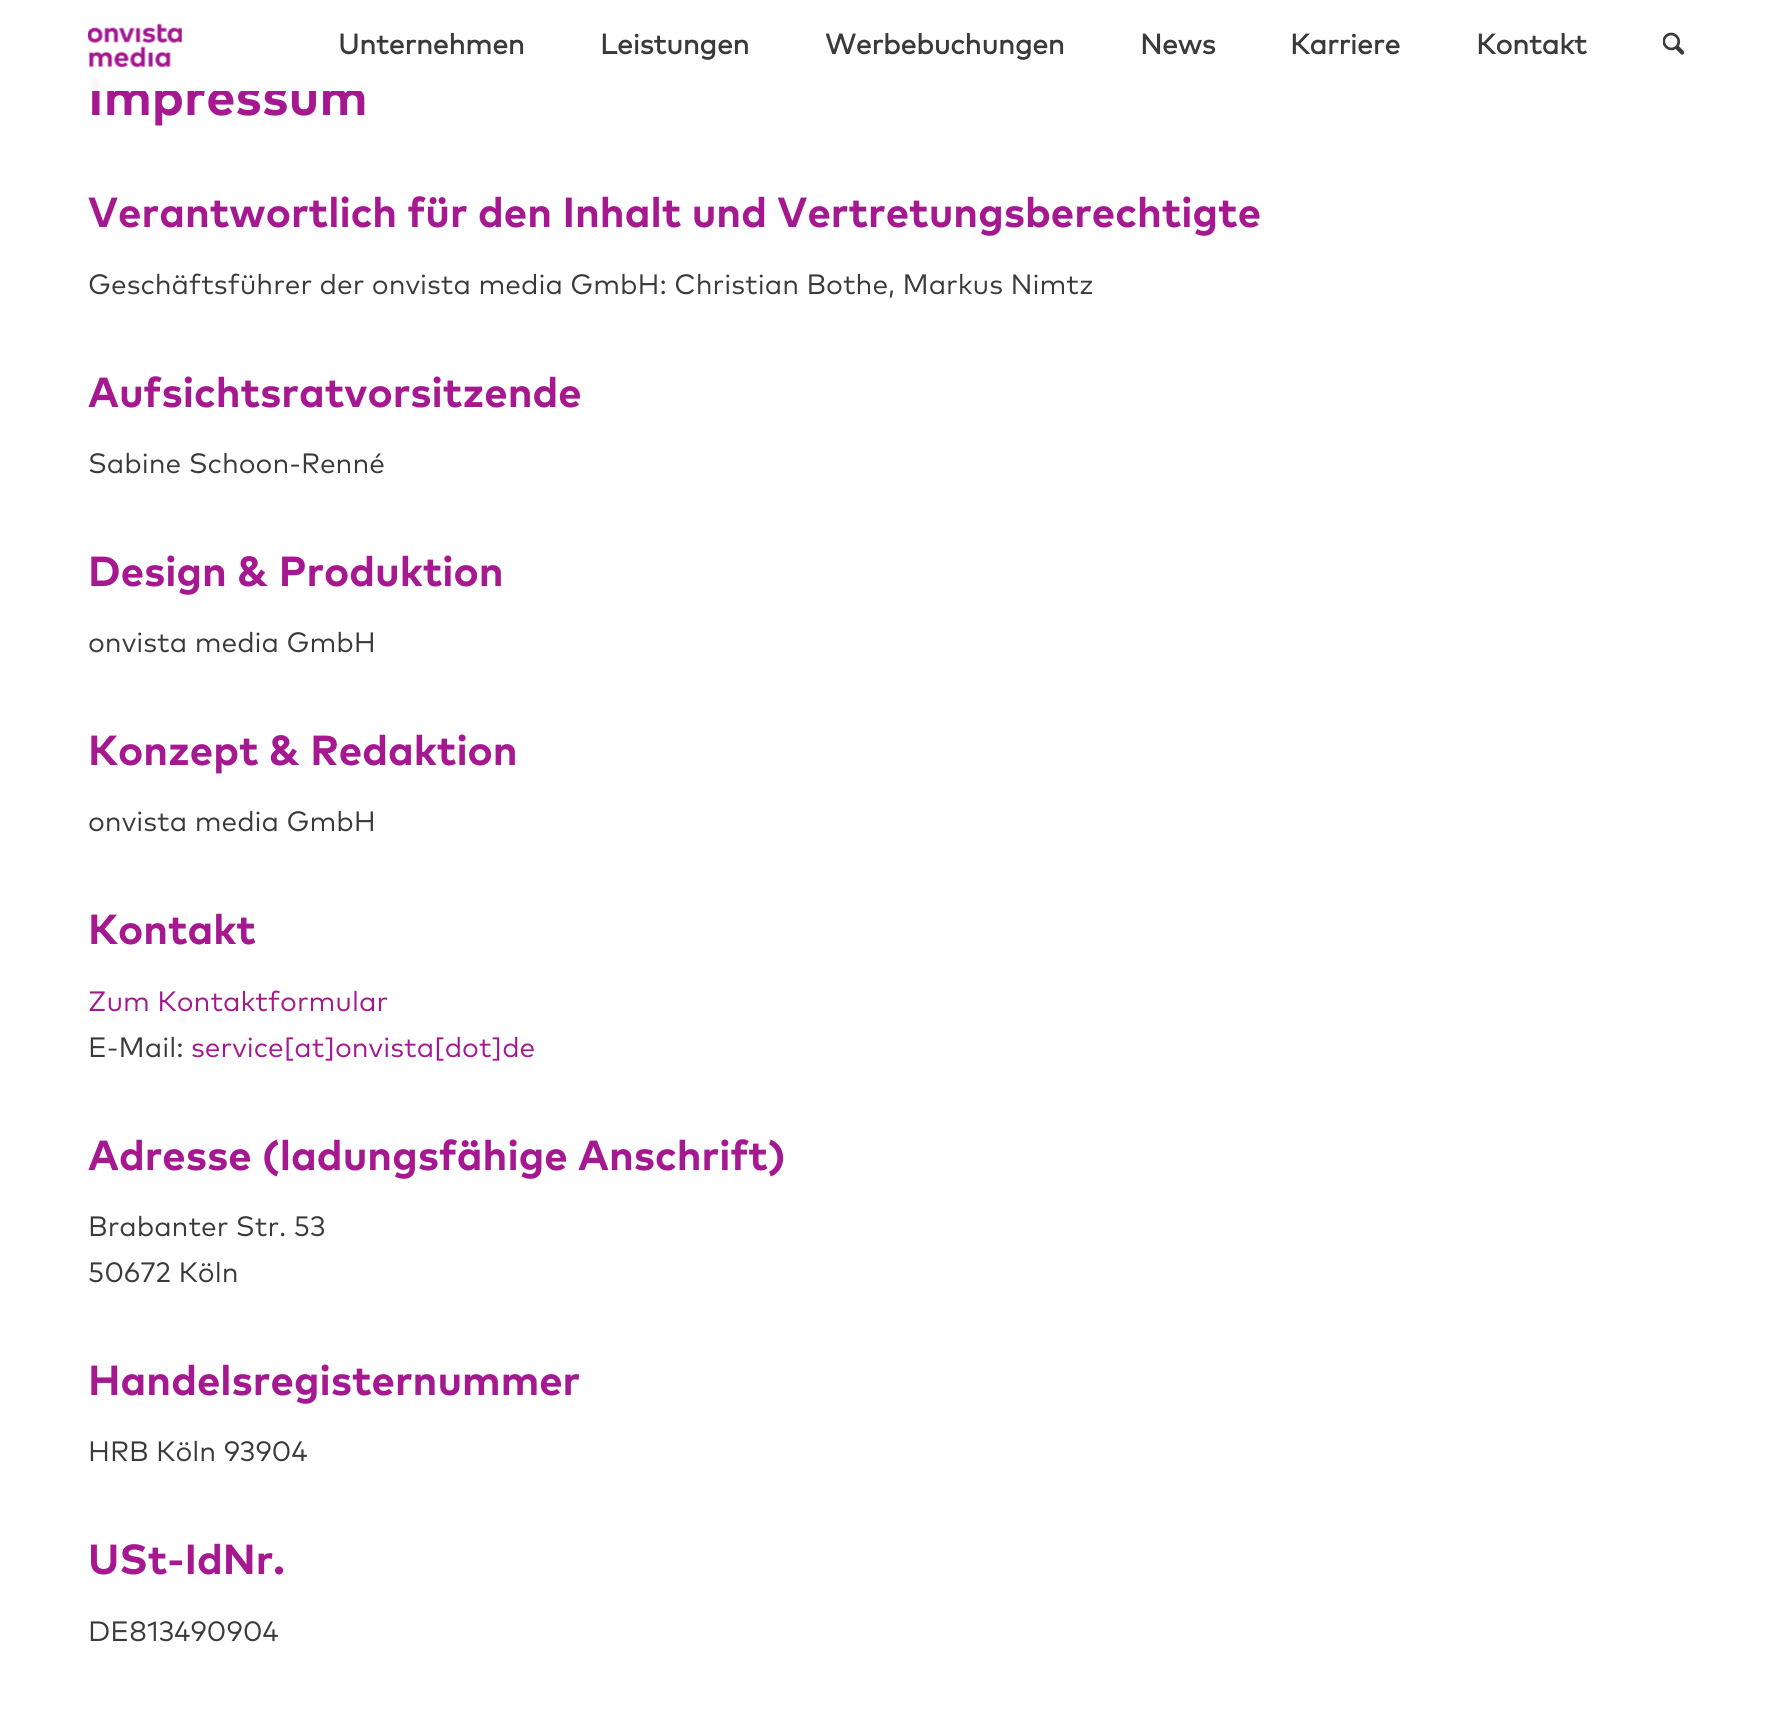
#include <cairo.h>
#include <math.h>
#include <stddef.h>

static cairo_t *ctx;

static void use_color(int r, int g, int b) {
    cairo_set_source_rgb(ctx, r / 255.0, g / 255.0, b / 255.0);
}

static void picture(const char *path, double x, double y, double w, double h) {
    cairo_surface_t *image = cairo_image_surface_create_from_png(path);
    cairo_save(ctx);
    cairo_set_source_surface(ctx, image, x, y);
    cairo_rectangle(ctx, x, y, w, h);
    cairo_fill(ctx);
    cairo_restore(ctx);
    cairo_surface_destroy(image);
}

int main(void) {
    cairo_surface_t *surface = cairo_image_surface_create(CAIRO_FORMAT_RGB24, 1770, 1727);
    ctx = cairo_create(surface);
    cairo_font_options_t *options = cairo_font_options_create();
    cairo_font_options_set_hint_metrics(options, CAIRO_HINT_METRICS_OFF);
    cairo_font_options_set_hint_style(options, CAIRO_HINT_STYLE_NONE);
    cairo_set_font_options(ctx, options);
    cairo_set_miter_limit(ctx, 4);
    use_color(255, 255, 255);
    cairo_paint(ctx);
    cairo_select_font_face(ctx, "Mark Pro", CAIRO_FONT_SLANT_NORMAL, CAIRO_FONT_WEIGHT_BOLD);
    cairo_set_font_size(ctx, 52.5);
    use_color(165, 24, 144);
    cairo_move_to(ctx, 88, 115);
    cairo_show_text(ctx, "Impressum");
    use_color(255, 255, 255);
    cairo_rectangle(ctx, 91, 89, 270, 2);
    cairo_fill(ctx);
    picture("img1.png", 88, 23, 94, 45);
    cairo_select_font_face(ctx, "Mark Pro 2", CAIRO_FONT_SLANT_NORMAL, CAIRO_FONT_WEIGHT_BOLD);
    cairo_set_font_size(ctx, 28);
    use_color(58, 58, 58);
    cairo_move_to(ctx, 338, 54);
    cairo_show_text(ctx, "Unternehmen");
    cairo_move_to(ctx, 600, 54);
    cairo_show_text(ctx, "Leistungen");
    cairo_move_to(ctx, 825, 54);
    cairo_show_text(ctx, "Werbebuchungen");
    cairo_move_to(ctx, 1140, 54);
    cairo_show_text(ctx, "News");
    cairo_move_to(ctx, 1290, 54);
    cairo_show_text(ctx, "Karriere");
    cairo_move_to(ctx, 1476, 54);
    cairo_show_text(ctx, "Kontakt");
    picture("img2.png", 1663, 32, 21, 23);
    cairo_set_source_rgba(ctx, 1, 1, 1, 0.95);
    cairo_rectangle(ctx, 91, 78, 264, 11);
    cairo_fill(ctx);
    cairo_select_font_face(ctx, "Mark Pro", CAIRO_FONT_SLANT_NORMAL, CAIRO_FONT_WEIGHT_BOLD);
    cairo_set_font_size(ctx, 42);
    use_color(165, 24, 144);
    cairo_move_to(ctx, 88, 227);
    cairo_show_text(ctx, "Verantwortlich für den Inhalt und Vertretungsberechtigte");
    cairo_select_font_face(ctx, "Mark Pro", CAIRO_FONT_SLANT_NORMAL, CAIRO_FONT_WEIGHT_NORMAL);
    cairo_set_font_size(ctx, 28);
    use_color(58, 58, 58);
    cairo_move_to(ctx, 88, 294);
    cairo_show_text(ctx, "Geschäftsführer der onvista media GmbH: Christian Bothe, Markus Nimtz");
    cairo_select_font_face(ctx, "Mark Pro", CAIRO_FONT_SLANT_NORMAL, CAIRO_FONT_WEIGHT_BOLD);
    cairo_set_font_size(ctx, 42);
    use_color(165, 24, 144);
    cairo_move_to(ctx, 88, 407);
    cairo_show_text(ctx, "Aufsichtsratvorsitzende");
    cairo_select_font_face(ctx, "Mark Pro", CAIRO_FONT_SLANT_NORMAL, CAIRO_FONT_WEIGHT_NORMAL);
    cairo_set_font_size(ctx, 28);
    use_color(58, 58, 58);
    cairo_move_to(ctx, 88, 473);
    cairo_show_text(ctx, "Sabine Schoon-Renné");
    cairo_select_font_face(ctx, "Mark Pro", CAIRO_FONT_SLANT_NORMAL, CAIRO_FONT_WEIGHT_BOLD);
    cairo_set_font_size(ctx, 42);
    use_color(165, 24, 144);
    cairo_move_to(ctx, 88, 586);
    cairo_show_text(ctx, "Design & Produktion");
    cairo_select_font_face(ctx, "Mark Pro", CAIRO_FONT_SLANT_NORMAL, CAIRO_FONT_WEIGHT_NORMAL);
    cairo_set_font_size(ctx, 28);
    use_color(58, 58, 58);
    cairo_move_to(ctx, 88, 652);
    cairo_show_text(ctx, "onvista media GmbH");
    cairo_select_font_face(ctx, "Mark Pro", CAIRO_FONT_SLANT_NORMAL, CAIRO_FONT_WEIGHT_BOLD);
    cairo_set_font_size(ctx, 42);
    use_color(165, 24, 144);
    cairo_move_to(ctx, 88, 765);
    cairo_show_text(ctx, "Konzept & Redaktion");
    cairo_select_font_face(ctx, "Mark Pro", CAIRO_FONT_SLANT_NORMAL, CAIRO_FONT_WEIGHT_NORMAL);
    cairo_set_font_size(ctx, 28);
    use_color(58, 58, 58);
    cairo_move_to(ctx, 88, 831);
    cairo_show_text(ctx, "onvista media GmbH");
    cairo_select_font_face(ctx, "Mark Pro", CAIRO_FONT_SLANT_NORMAL, CAIRO_FONT_WEIGHT_BOLD);
    cairo_set_font_size(ctx, 42);
    use_color(165, 24, 144);
    cairo_move_to(ctx, 88, 944);
    cairo_show_text(ctx, "Kontakt");
    cairo_select_font_face(ctx, "Mark Pro", CAIRO_FONT_SLANT_NORMAL, CAIRO_FONT_WEIGHT_NORMAL);
    cairo_set_font_size(ctx, 28);
    cairo_move_to(ctx, 88, 1011);
    cairo_show_text(ctx, "Zum Kontaktformular");
    use_color(58, 58, 58);
    cairo_move_to(ctx, 88, 1057);
    cairo_show_text(ctx, "E-Mail:");
    use_color(165, 24, 144);
    cairo_move_to(ctx, 191, 1057);
    cairo_show_text(ctx, "service[at]onvista[dot]de");
    cairo_select_font_face(ctx, "Mark Pro", CAIRO_FONT_SLANT_NORMAL, CAIRO_FONT_WEIGHT_BOLD);
    cairo_set_font_size(ctx, 42);
    cairo_move_to(ctx, 88, 1170);
    cairo_show_text(ctx, "Adresse (ladungsfähige Anschrift)");
    cairo_select_font_face(ctx, "Mark Pro", CAIRO_FONT_SLANT_NORMAL, CAIRO_FONT_WEIGHT_NORMAL);
    cairo_set_font_size(ctx, 28);
    use_color(58, 58, 58);
    cairo_move_to(ctx, 88, 1236);
    cairo_show_text(ctx, "Brabanter Str. 53");
    cairo_move_to(ctx, 88, 1282);
    cairo_show_text(ctx, "50672 Köln");
    cairo_select_font_face(ctx, "Mark Pro", CAIRO_FONT_SLANT_NORMAL, CAIRO_FONT_WEIGHT_BOLD);
    cairo_set_font_size(ctx, 42);
    use_color(165, 24, 144);
    cairo_move_to(ctx, 88, 1395);
    cairo_show_text(ctx, "Handelsregisternummer");
    cairo_select_font_face(ctx, "Mark Pro", CAIRO_FONT_SLANT_NORMAL, CAIRO_FONT_WEIGHT_NORMAL);
    cairo_set_font_size(ctx, 28);
    use_color(58, 58, 58);
    cairo_move_to(ctx, 88, 1461);
    cairo_show_text(ctx, "HRB Köln 93904");
    cairo_select_font_face(ctx, "Mark Pro", CAIRO_FONT_SLANT_NORMAL, CAIRO_FONT_WEIGHT_BOLD);
    cairo_set_font_size(ctx, 42);
    use_color(165, 24, 144);
    cairo_move_to(ctx, 88, 1574);
    cairo_show_text(ctx, "USt-IdNr.");
    cairo_select_font_face(ctx, "Mark Pro", CAIRO_FONT_SLANT_NORMAL, CAIRO_FONT_WEIGHT_NORMAL);
    cairo_set_font_size(ctx, 28);
    use_color(58, 58, 58);
    cairo_move_to(ctx, 88, 1641);
    cairo_show_text(ctx, "DE813490904");
    cairo_surface_write_to_png(surface, "result.png");
    cairo_font_options_destroy(options);
    cairo_destroy(ctx);
    cairo_surface_destroy(surface);
    return 0;
}
